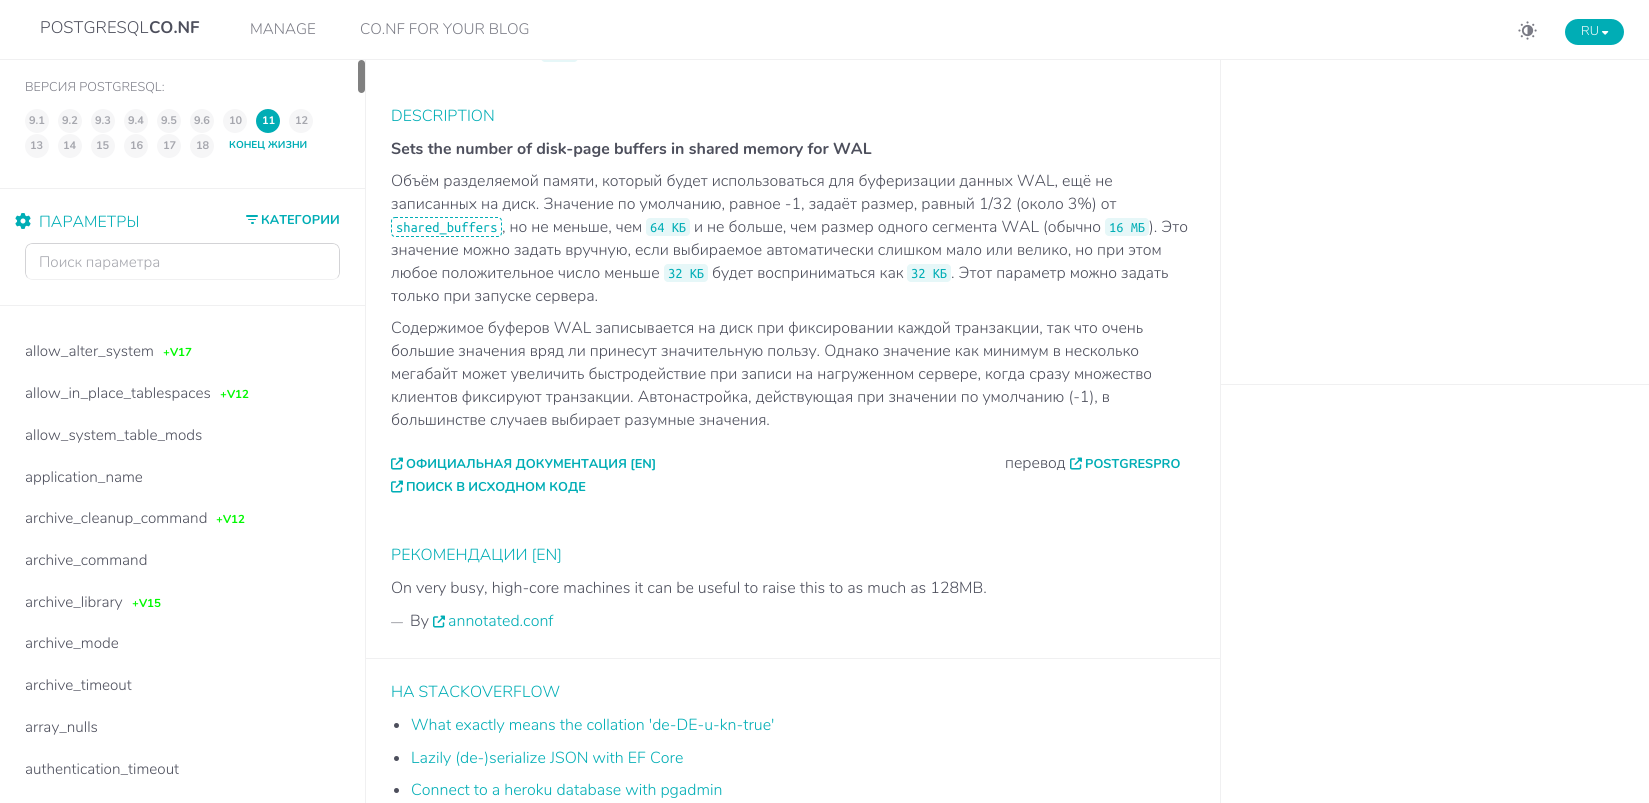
#include <cairo.h>
#include <math.h>
#include <stddef.h>

static cairo_t *ctx;

static void use_color(int r, int g, int b) {
    cairo_set_source_rgb(ctx, r / 255.0, g / 255.0, b / 255.0);
}

static void round_rect(double x, double y, double w, double h, double r) {
    cairo_new_sub_path(ctx);
    cairo_arc(ctx, x + w - r, y + h - r, r, 0, M_PI / 2);
    cairo_arc(ctx, x + r, y + h - r, r, M_PI / 2, M_PI);
    cairo_arc(ctx, x + r, y + r, r, M_PI, 1.5 * M_PI);
    cairo_arc(ctx, x + w - r, y + r, r, 1.5 * M_PI, 2 * M_PI);
    cairo_close_path(ctx);
}

static void picture(const char *path, double x, double y, double w, double h) {
    cairo_surface_t *image = cairo_image_surface_create_from_png(path);
    cairo_save(ctx);
    cairo_set_source_surface(ctx, image, x, y);
    cairo_rectangle(ctx, x, y, w, h);
    cairo_fill(ctx);
    cairo_restore(ctx);
    cairo_surface_destroy(image);
}

int main(void) {
    cairo_surface_t *surface = cairo_image_surface_create(CAIRO_FORMAT_RGB24, 1649, 803);
    ctx = cairo_create(surface);
    cairo_font_options_t *options = cairo_font_options_create();
    cairo_font_options_set_hint_metrics(options, CAIRO_HINT_METRICS_OFF);
    cairo_font_options_set_hint_style(options, CAIRO_HINT_STYLE_NONE);
    cairo_set_font_options(ctx, options);
    cairo_set_miter_limit(ctx, 4);
    use_color(255, 255, 255);
    cairo_paint(ctx);
    use_color(230, 247, 248);
    round_rect(541, 44, 37, 18, 4);
    cairo_fill(ctx);
    use_color(255, 255, 255);
    cairo_rectangle(ctx, 541, 44, 37, 15);
    cairo_fill(ctx);
    use_color(240, 240, 241);
    cairo_rectangle(ctx, 0, 59, 1649, 1);
    cairo_fill(ctx);
    cairo_select_font_face(ctx, "Nunito Light", CAIRO_FONT_SLANT_NORMAL, CAIRO_FONT_WEIGHT_NORMAL);
    cairo_set_font_size(ctx, 16.75);
    use_color(77, 79, 92);
    cairo_move_to(ctx, 40, 33);
    cairo_show_text(ctx, "POSTGRESQL");
    cairo_select_font_face(ctx, "Nunito", CAIRO_FONT_SLANT_NORMAL, CAIRO_FONT_WEIGHT_BOLD);
    cairo_move_to(ctx, 149, 33);
    cairo_show_text(ctx, "CO.NF");
    cairo_select_font_face(ctx, "Nunito Light", CAIRO_FONT_SLANT_NORMAL, CAIRO_FONT_WEIGHT_NORMAL);
    cairo_set_font_size(ctx, 15.25);
    use_color(122, 123, 133);
    cairo_move_to(ctx, 250, 34);
    cairo_show_text(ctx, "MANAGE");
    cairo_move_to(ctx, 360, 34);
    cairo_show_text(ctx, "CO.NF FOR YOUR BLOG");
    picture("img1.png", 1518, 21, 19, 19);
    use_color(0, 173, 181);
    round_rect(1565, 19, 59, 26, 13);
    cairo_fill(ctx);
    cairo_set_font_size(ctx, 12.75);
    use_color(255, 255, 255);
    cairo_move_to(ctx, 1581, 35);
    cairo_show_text(ctx, "RU");
    picture("img2.png", 1602, 31, 7, 4);
    use_color(128, 128, 128);
    round_rect(358, 60, 7, 33, 3.5);
    cairo_fill(ctx);
    use_color(240, 240, 241);
    cairo_rectangle(ctx, 0, 188, 365, 1);
    cairo_fill(ctx);
    use_color(122, 123, 133);
    cairo_move_to(ctx, 25, 91);
    cairo_show_text(ctx, "ВЕРСИЯ POSTGRESQL:");
    use_color(246, 246, 247);
    cairo_new_path(ctx);
    cairo_arc(ctx, 37, 121, 12, 0, 2 * M_PI);
    cairo_fill(ctx);
    cairo_select_font_face(ctx, "Nunito", CAIRO_FONT_SLANT_NORMAL, CAIRO_FONT_WEIGHT_BOLD);
    cairo_set_font_size(ctx, 11);
    use_color(166, 167, 174);
    cairo_move_to(ctx, 29, 124);
    cairo_show_text(ctx, "9.1");
    use_color(246, 246, 247);
    cairo_new_path(ctx);
    cairo_arc(ctx, 70, 121, 12, 0, 2 * M_PI);
    cairo_fill(ctx);
    use_color(166, 167, 174);
    cairo_move_to(ctx, 62, 124);
    cairo_show_text(ctx, "9.2");
    use_color(246, 246, 247);
    cairo_new_path(ctx);
    cairo_arc(ctx, 103, 121, 12, 0, 2 * M_PI);
    cairo_fill(ctx);
    use_color(166, 167, 174);
    cairo_move_to(ctx, 95, 124);
    cairo_show_text(ctx, "9.3");
    use_color(246, 246, 247);
    cairo_new_path(ctx);
    cairo_arc(ctx, 136, 121, 12, 0, 2 * M_PI);
    cairo_fill(ctx);
    use_color(166, 167, 174);
    cairo_move_to(ctx, 128, 124);
    cairo_show_text(ctx, "9.4");
    use_color(246, 246, 247);
    cairo_new_path(ctx);
    cairo_arc(ctx, 169, 121, 12, 0, 2 * M_PI);
    cairo_fill(ctx);
    use_color(166, 167, 174);
    cairo_move_to(ctx, 161, 124);
    cairo_show_text(ctx, "9.5");
    use_color(246, 246, 247);
    cairo_new_path(ctx);
    cairo_arc(ctx, 202, 121, 12, 0, 2 * M_PI);
    cairo_fill(ctx);
    use_color(166, 167, 174);
    cairo_move_to(ctx, 194, 124);
    cairo_show_text(ctx, "9.6");
    use_color(246, 246, 247);
    cairo_new_path(ctx);
    cairo_arc(ctx, 235, 121, 12, 0, 2 * M_PI);
    cairo_fill(ctx);
    use_color(166, 167, 174);
    cairo_move_to(ctx, 229, 124);
    cairo_show_text(ctx, "10");
    use_color(0, 173, 181);
    cairo_new_path(ctx);
    cairo_arc(ctx, 268, 121, 12, 0, 2 * M_PI);
    cairo_fill(ctx);
    use_color(255, 255, 255);
    cairo_move_to(ctx, 262, 124);
    cairo_show_text(ctx, "11");
    cairo_set_font_size(ctx, 10);
    use_color(0, 173, 181);
    cairo_move_to(ctx, 229, 148);
    cairo_show_text(ctx, "КОНЕЦ ЖИЗНИ");
    use_color(246, 246, 247);
    cairo_new_path(ctx);
    cairo_arc(ctx, 301, 121, 12, 0, 2 * M_PI);
    cairo_fill(ctx);
    cairo_set_font_size(ctx, 11);
    use_color(166, 167, 174);
    cairo_move_to(ctx, 295, 124);
    cairo_show_text(ctx, "12");
    use_color(246, 246, 247);
    cairo_new_path(ctx);
    cairo_arc(ctx, 37, 146, 12, 0, 2 * M_PI);
    cairo_fill(ctx);
    use_color(166, 167, 174);
    cairo_move_to(ctx, 30, 149);
    cairo_show_text(ctx, "13");
    use_color(246, 246, 247);
    cairo_new_path(ctx);
    cairo_arc(ctx, 70, 146, 12, 0, 2 * M_PI);
    cairo_fill(ctx);
    use_color(166, 167, 174);
    cairo_move_to(ctx, 63, 149);
    cairo_show_text(ctx, "14");
    use_color(246, 246, 247);
    cairo_new_path(ctx);
    cairo_arc(ctx, 103, 146, 12, 0, 2 * M_PI);
    cairo_fill(ctx);
    use_color(166, 167, 174);
    cairo_move_to(ctx, 96, 149);
    cairo_show_text(ctx, "15");
    use_color(246, 246, 247);
    cairo_new_path(ctx);
    cairo_arc(ctx, 136, 146, 12, 0, 2 * M_PI);
    cairo_fill(ctx);
    use_color(166, 167, 174);
    cairo_move_to(ctx, 130, 149);
    cairo_show_text(ctx, "16");
    use_color(246, 246, 247);
    cairo_new_path(ctx);
    cairo_arc(ctx, 169, 146, 12, 0, 2 * M_PI);
    cairo_fill(ctx);
    use_color(166, 167, 174);
    cairo_move_to(ctx, 163, 149);
    cairo_show_text(ctx, "17");
    use_color(246, 246, 247);
    cairo_new_path(ctx);
    cairo_arc(ctx, 202, 146, 12, 0, 2 * M_PI);
    cairo_fill(ctx);
    use_color(166, 167, 174);
    cairo_move_to(ctx, 196, 149);
    cairo_show_text(ctx, "18");
    picture("img3.png", 15, 213, 16, 16);
    cairo_select_font_face(ctx, "Nunito Light", CAIRO_FONT_SLANT_NORMAL, CAIRO_FONT_WEIGHT_NORMAL);
    cairo_set_font_size(ctx, 16);
    use_color(0, 173, 181);
    cairo_move_to(ctx, 39, 227);
    cairo_show_text(ctx, "ПАРАМЕТРЫ");
    cairo_select_font_face(ctx, "Nunito", CAIRO_FONT_SLANT_NORMAL, CAIRO_FONT_WEIGHT_BOLD);
    cairo_set_font_size(ctx, 12.75);
    cairo_move_to(ctx, 261, 224);
    cairo_show_text(ctx, "КАТЕГОРИИ");
    round_rect(246, 215, 12, 2, 1);
    cairo_fill(ctx);
    round_rect(248, 219, 8, 1, 0.5);
    cairo_fill(ctx);
    round_rect(251, 222, 3, 2, 1);
    cairo_fill(ctx);
    cairo_new_path(ctx);
    cairo_move_to(ctx, 337.5, 277.5);
    cairo_curve_to(ctx, 336, 278.5, 334, 279.5, 332, 279.5);
    cairo_line_to(ctx, 33, 279.5);
    cairo_curve_to(ctx, 31, 279.5, 29, 278.5, 27.5, 277.5);
    use_color(240, 240, 241);
    cairo_set_line_width(ctx, 1);
    cairo_stroke(ctx);
    cairo_new_path(ctx);
    cairo_move_to(ctx, 27.5, 277.5);
    cairo_curve_to(ctx, 26.5, 276, 25.5, 274, 25.5, 272);
    cairo_line_to(ctx, 25.5, 251);
    cairo_curve_to(ctx, 25.5, 249, 26.5, 247, 27.5, 245.5);
    cairo_curve_to(ctx, 29, 244.5, 31, 243.5, 33, 243.5);
    cairo_line_to(ctx, 332, 243.5);
    cairo_curve_to(ctx, 334, 243.5, 336, 244.5, 337.5, 245.5);
    cairo_curve_to(ctx, 338.5, 247, 339.5, 249, 339.5, 251);
    cairo_line_to(ctx, 339.5, 272);
    cairo_curve_to(ctx, 339.5, 274, 338.5, 276, 337.5, 277.5);
    use_color(211, 211, 214);
    cairo_stroke(ctx);
    use_color(255, 255, 255);
    cairo_new_path(ctx);
    cairo_move_to(ctx, 33, 244);
    cairo_line_to(ctx, 299, 244);
    cairo_line_to(ctx, 299, 279);
    cairo_line_to(ctx, 33, 279);
    cairo_curve_to(ctx, 29, 279, 26, 276, 26, 272);
    cairo_line_to(ctx, 26, 251);
    cairo_curve_to(ctx, 26, 247, 29, 244, 33, 244);
    cairo_close_path(ctx);
    cairo_fill(ctx);
    cairo_select_font_face(ctx, "Nunito Light", CAIRO_FONT_SLANT_NORMAL, CAIRO_FONT_WEIGHT_NORMAL);
    cairo_set_font_size(ctx, 15.25);
    use_color(166, 167, 174);
    cairo_move_to(ctx, 39, 267);
    cairo_show_text(ctx, "Поиск параметра");
    use_color(255, 255, 255);
    cairo_new_path(ctx);
    cairo_move_to(ctx, 298, 244);
    cairo_line_to(ctx, 332, 244);
    cairo_curve_to(ctx, 336, 244, 339, 247, 339, 251);
    cairo_line_to(ctx, 339, 272);
    cairo_curve_to(ctx, 339, 276, 336, 279, 332, 279);
    cairo_line_to(ctx, 298, 279);
    cairo_close_path(ctx);
    cairo_fill(ctx);
    use_color(240, 240, 241);
    cairo_rectangle(ctx, 0, 305, 365, 1);
    cairo_fill(ctx);
    use_color(77, 79, 92);
    cairo_move_to(ctx, 25, 356);
    cairo_show_text(ctx, "allow_alter_system");
    cairo_select_font_face(ctx, "Nunito", CAIRO_FONT_SLANT_NORMAL, CAIRO_FONT_WEIGHT_BOLD);
    cairo_set_font_size(ctx, 11.5);
    use_color(0, 249, 0);
    cairo_move_to(ctx, 163, 356);
    cairo_show_text(ctx, "+V17");
    cairo_select_font_face(ctx, "Nunito Light", CAIRO_FONT_SLANT_NORMAL, CAIRO_FONT_WEIGHT_NORMAL);
    cairo_set_font_size(ctx, 15.25);
    use_color(77, 79, 92);
    cairo_move_to(ctx, 25, 398);
    cairo_show_text(ctx, "allow_in_place_tablespaces");
    cairo_select_font_face(ctx, "Nunito", CAIRO_FONT_SLANT_NORMAL, CAIRO_FONT_WEIGHT_BOLD);
    cairo_set_font_size(ctx, 11.5);
    use_color(0, 249, 0);
    cairo_move_to(ctx, 220, 398);
    cairo_show_text(ctx, "+V12");
    cairo_select_font_face(ctx, "Nunito Light", CAIRO_FONT_SLANT_NORMAL, CAIRO_FONT_WEIGHT_NORMAL);
    cairo_set_font_size(ctx, 15.25);
    use_color(77, 79, 92);
    cairo_move_to(ctx, 25, 440);
    cairo_show_text(ctx, "allow_system_table_mods");
    cairo_move_to(ctx, 25, 482);
    cairo_show_text(ctx, "application_name");
    cairo_move_to(ctx, 25, 523);
    cairo_show_text(ctx, "archive_cleanup_command");
    cairo_select_font_face(ctx, "Nunito", CAIRO_FONT_SLANT_NORMAL, CAIRO_FONT_WEIGHT_BOLD);
    cairo_set_font_size(ctx, 11.5);
    use_color(0, 249, 0);
    cairo_move_to(ctx, 216, 523);
    cairo_show_text(ctx, "+V12");
    cairo_select_font_face(ctx, "Nunito Light", CAIRO_FONT_SLANT_NORMAL, CAIRO_FONT_WEIGHT_NORMAL);
    cairo_set_font_size(ctx, 15.25);
    use_color(77, 79, 92);
    cairo_move_to(ctx, 25, 565);
    cairo_show_text(ctx, "archive_command");
    cairo_move_to(ctx, 25, 607);
    cairo_show_text(ctx, "archive_library");
    cairo_select_font_face(ctx, "Nunito", CAIRO_FONT_SLANT_NORMAL, CAIRO_FONT_WEIGHT_BOLD);
    cairo_set_font_size(ctx, 11.5);
    use_color(0, 249, 0);
    cairo_move_to(ctx, 132, 607);
    cairo_show_text(ctx, "+V15");
    cairo_select_font_face(ctx, "Nunito Light", CAIRO_FONT_SLANT_NORMAL, CAIRO_FONT_WEIGHT_NORMAL);
    cairo_set_font_size(ctx, 15.25);
    use_color(77, 79, 92);
    cairo_move_to(ctx, 25, 648);
    cairo_show_text(ctx, "archive_mode");
    cairo_move_to(ctx, 25, 690);
    cairo_show_text(ctx, "archive_timeout");
    cairo_move_to(ctx, 25, 732);
    cairo_show_text(ctx, "array_nulls");
    cairo_move_to(ctx, 25, 774);
    cairo_show_text(ctx, "authentication_timeout");
    use_color(240, 240, 241);
    cairo_rectangle(ctx, 365, 60, 1, 743);
    cairo_fill(ctx);
    cairo_rectangle(ctx, 1220, 60, 1, 743);
    cairo_fill(ctx);
    cairo_set_font_size(ctx, 16);
    use_color(0, 173, 181);
    cairo_move_to(ctx, 391, 121);
    cairo_show_text(ctx, "DESCRIPTION");
    cairo_select_font_face(ctx, "Nunito", CAIRO_FONT_SLANT_NORMAL, CAIRO_FONT_WEIGHT_BOLD);
    use_color(77, 79, 92);
    cairo_move_to(ctx, 391, 154);
    cairo_show_text(ctx, "Sets the number of disk-page buffers in shared memory for WAL");
    cairo_select_font_face(ctx, "Nunito Light", CAIRO_FONT_SLANT_NORMAL, CAIRO_FONT_WEIGHT_NORMAL);
    cairo_move_to(ctx, 391, 186);
    cairo_show_text(ctx, "Объём разделяемой памяти, который будет использоваться для буферизации данных WAL, ещё не");
    cairo_move_to(ctx, 391, 209);
    cairo_show_text(ctx, "записанных на диск. Значение по умолчанию, равное -1, задаёт размер, равный 1/32 (около 3%) от");
    cairo_new_path(ctx);
    cairo_move_to(ctx, 395, 217.5);
    cairo_line_to(ctx, 498, 217.5);
    cairo_curve_to(ctx, 500, 217.5, 501.5, 219, 501.5, 221);
    cairo_line_to(ctx, 501.5, 233);
    cairo_curve_to(ctx, 501.5, 235, 500, 236.5, 498, 236.5);
    cairo_line_to(ctx, 395, 236.5);
    cairo_curve_to(ctx, 393, 236.5, 391.5, 235, 391.5, 233);
    cairo_line_to(ctx, 391.5, 221);
    cairo_curve_to(ctx, 391.5, 219, 393, 217.5, 395, 217.5);
    cairo_close_path(ctx);
    use_color(0, 173, 181);
    cairo_set_dash(ctx, (double[]){3, 2}, 2, 0);
    cairo_stroke(ctx);
    cairo_select_font_face(ctx, "Ubuntu Mono", CAIRO_FONT_SLANT_NORMAL, CAIRO_FONT_WEIGHT_NORMAL);
    cairo_set_font_size(ctx, 14.5);
    cairo_move_to(ctx, 396, 232);
    cairo_show_text(ctx, "shared_buffers");
    cairo_select_font_face(ctx, "Nunito Light", CAIRO_FONT_SLANT_NORMAL, CAIRO_FONT_WEIGHT_NORMAL);
    cairo_set_font_size(ctx, 16);
    use_color(77, 79, 92);
    cairo_move_to(ctx, 502, 232);
    cairo_show_text(ctx, ", но не меньше, чем");
    use_color(230, 247, 248);
    round_rect(646, 218, 44, 18, 4);
    cairo_fill(ctx);
    cairo_select_font_face(ctx, "Ubuntu Mono", CAIRO_FONT_SLANT_NORMAL, CAIRO_FONT_WEIGHT_NORMAL);
    cairo_set_font_size(ctx, 14.5);
    use_color(0, 173, 181);
    cairo_move_to(ctx, 650, 232);
    cairo_show_text(ctx, "64 КБ");
    cairo_select_font_face(ctx, "Nunito Light", CAIRO_FONT_SLANT_NORMAL, CAIRO_FONT_WEIGHT_NORMAL);
    cairo_set_font_size(ctx, 16);
    use_color(77, 79, 92);
    cairo_move_to(ctx, 694, 232);
    cairo_show_text(ctx, "и не больше, чем размер одного сегмента WAL (обычно");
    use_color(230, 247, 248);
    round_rect(1105, 218, 44, 18, 4);
    cairo_fill(ctx);
    cairo_select_font_face(ctx, "Ubuntu Mono", CAIRO_FONT_SLANT_NORMAL, CAIRO_FONT_WEIGHT_NORMAL);
    cairo_set_font_size(ctx, 14.5);
    use_color(0, 173, 181);
    cairo_move_to(ctx, 1109, 232);
    cairo_show_text(ctx, "16 МБ");
    cairo_select_font_face(ctx, "Nunito Light", CAIRO_FONT_SLANT_NORMAL, CAIRO_FONT_WEIGHT_NORMAL);
    cairo_set_font_size(ctx, 16);
    use_color(77, 79, 92);
    cairo_move_to(ctx, 1149, 232);
    cairo_show_text(ctx, "). Это");
    cairo_move_to(ctx, 391, 255);
    cairo_show_text(ctx, "значение можно задать вручную, если выбираемое автоматически слишком мало или велико, но при этом");
    cairo_move_to(ctx, 391, 278);
    cairo_show_text(ctx, "любое положительное число меньше");
    use_color(230, 247, 248);
    round_rect(664, 264, 44, 18, 4);
    cairo_fill(ctx);
    cairo_select_font_face(ctx, "Ubuntu Mono", CAIRO_FONT_SLANT_NORMAL, CAIRO_FONT_WEIGHT_NORMAL);
    cairo_set_font_size(ctx, 14.5);
    use_color(0, 173, 181);
    cairo_move_to(ctx, 668, 278);
    cairo_show_text(ctx, "32 КБ");
    cairo_select_font_face(ctx, "Nunito Light", CAIRO_FONT_SLANT_NORMAL, CAIRO_FONT_WEIGHT_NORMAL);
    cairo_set_font_size(ctx, 16);
    use_color(77, 79, 92);
    cairo_move_to(ctx, 712, 278);
    cairo_show_text(ctx, "будет восприниматься как");
    use_color(230, 247, 248);
    round_rect(907, 264, 44, 18, 4);
    cairo_fill(ctx);
    cairo_select_font_face(ctx, "Ubuntu Mono", CAIRO_FONT_SLANT_NORMAL, CAIRO_FONT_WEIGHT_NORMAL);
    cairo_set_font_size(ctx, 14.5);
    use_color(0, 173, 181);
    cairo_move_to(ctx, 911, 278);
    cairo_show_text(ctx, "32 КБ");
    cairo_select_font_face(ctx, "Nunito Light", CAIRO_FONT_SLANT_NORMAL, CAIRO_FONT_WEIGHT_NORMAL);
    cairo_set_font_size(ctx, 16);
    use_color(77, 79, 92);
    cairo_move_to(ctx, 951, 278);
    cairo_show_text(ctx, ". Этот параметр можно задать");
    cairo_move_to(ctx, 391, 301);
    cairo_show_text(ctx, "только при запуске сервера.");
    cairo_move_to(ctx, 391, 333);
    cairo_show_text(ctx, "Содержимое буферов WAL записывается на диск при фиксировании каждой транзакции, так что очень");
    cairo_move_to(ctx, 391, 356);
    cairo_show_text(ctx, "большие значения вряд ли принесут значительную пользу. Однако значение как минимум в несколько");
    cairo_move_to(ctx, 391, 379);
    cairo_show_text(ctx, "мегабайт может увеличить быстродействие при записи на нагруженном сервере, когда сразу множество");
    cairo_move_to(ctx, 391, 402);
    cairo_show_text(ctx, "клиентов фиксируют транзакции. Автонастройка, действующая при значении по умолчанию (-1), в");
    cairo_move_to(ctx, 391, 425);
    cairo_show_text(ctx, "большинстве случаев выбирает разумные значения.");
    picture("img4.png", 391, 457, 12, 13);
    cairo_select_font_face(ctx, "Nunito", CAIRO_FONT_SLANT_NORMAL, CAIRO_FONT_WEIGHT_BOLD);
    cairo_set_font_size(ctx, 12.75);
    use_color(0, 173, 181);
    cairo_move_to(ctx, 406, 468);
    cairo_show_text(ctx, "ОФИЦИАЛЬНАЯ ДОКУМЕНТАЦИЯ [EN]");
    cairo_select_font_face(ctx, "Nunito Light", CAIRO_FONT_SLANT_NORMAL, CAIRO_FONT_WEIGHT_NORMAL);
    cairo_set_font_size(ctx, 16);
    use_color(77, 79, 92);
    cairo_move_to(ctx, 1005, 468);
    cairo_show_text(ctx, "перевод");
    picture("img4.png", 1070, 457, 12, 13);
    cairo_select_font_face(ctx, "Nunito", CAIRO_FONT_SLANT_NORMAL, CAIRO_FONT_WEIGHT_BOLD);
    cairo_set_font_size(ctx, 12.75);
    use_color(0, 173, 181);
    cairo_move_to(ctx, 1085, 468);
    cairo_show_text(ctx, "POSTGRESPRO");
    picture("img4.png", 391, 480, 12, 13);
    cairo_move_to(ctx, 406, 491);
    cairo_show_text(ctx, "ПОИСК В ИСХОДНОМ КОДЕ");
    cairo_select_font_face(ctx, "Nunito Light", CAIRO_FONT_SLANT_NORMAL, CAIRO_FONT_WEIGHT_NORMAL);
    cairo_set_font_size(ctx, 16);
    cairo_move_to(ctx, 391, 560);
    cairo_show_text(ctx, "РЕКОМЕНДАЦИИ [EN]");
    use_color(77, 79, 92);
    cairo_move_to(ctx, 391, 593);
    cairo_show_text(ctx, "On very busy, high-core machines it can be useful to raise this to as much as 128MB.");
    cairo_set_font_size(ctx, 12);
    cairo_move_to(ctx, 391, 626);
    cairo_show_text(ctx, "—");
    cairo_set_font_size(ctx, 16);
    cairo_move_to(ctx, 410, 626);
    cairo_show_text(ctx, "By");
    picture("img4.png", 433, 615, 12, 13);
    use_color(0, 173, 181);
    cairo_move_to(ctx, 448, 626);
    cairo_show_text(ctx, "annotated.conf");
    use_color(240, 240, 241);
    cairo_rectangle(ctx, 366, 658, 854, 1);
    cairo_fill(ctx);
    use_color(0, 173, 181);
    cairo_move_to(ctx, 391, 697);
    cairo_show_text(ctx, "НА STACKOVERFLOW");
    use_color(77, 79, 92);
    cairo_new_path(ctx);
    cairo_arc(ctx, 396.5, 725.5, 2.5, 0, 2 * M_PI);
    cairo_fill(ctx);
    use_color(0, 173, 181);
    cairo_move_to(ctx, 411, 730);
    cairo_show_text(ctx, "What exactly means the collation 'de-DE-u-kn-true'");
    use_color(77, 79, 92);
    cairo_new_path(ctx);
    cairo_arc(ctx, 396.5, 758.5, 2.5, 0, 2 * M_PI);
    cairo_fill(ctx);
    use_color(0, 173, 181);
    cairo_move_to(ctx, 411, 763);
    cairo_show_text(ctx, "Lazily (de-)serialize JSON with EF Core");
    use_color(77, 79, 92);
    cairo_new_path(ctx);
    cairo_arc(ctx, 396.5, 790.5, 2.5, 0, 2 * M_PI);
    cairo_fill(ctx);
    use_color(0, 173, 181);
    cairo_move_to(ctx, 411, 795);
    cairo_show_text(ctx, "Connect to a heroku database with pgadmin");
    use_color(240, 240, 241);
    cairo_rectangle(ctx, 1221, 384, 428, 1);
    cairo_fill(ctx);
    cairo_surface_write_to_png(surface, "result.png");
    cairo_font_options_destroy(options);
    cairo_destroy(ctx);
    cairo_surface_destroy(surface);
    return 0;
}
